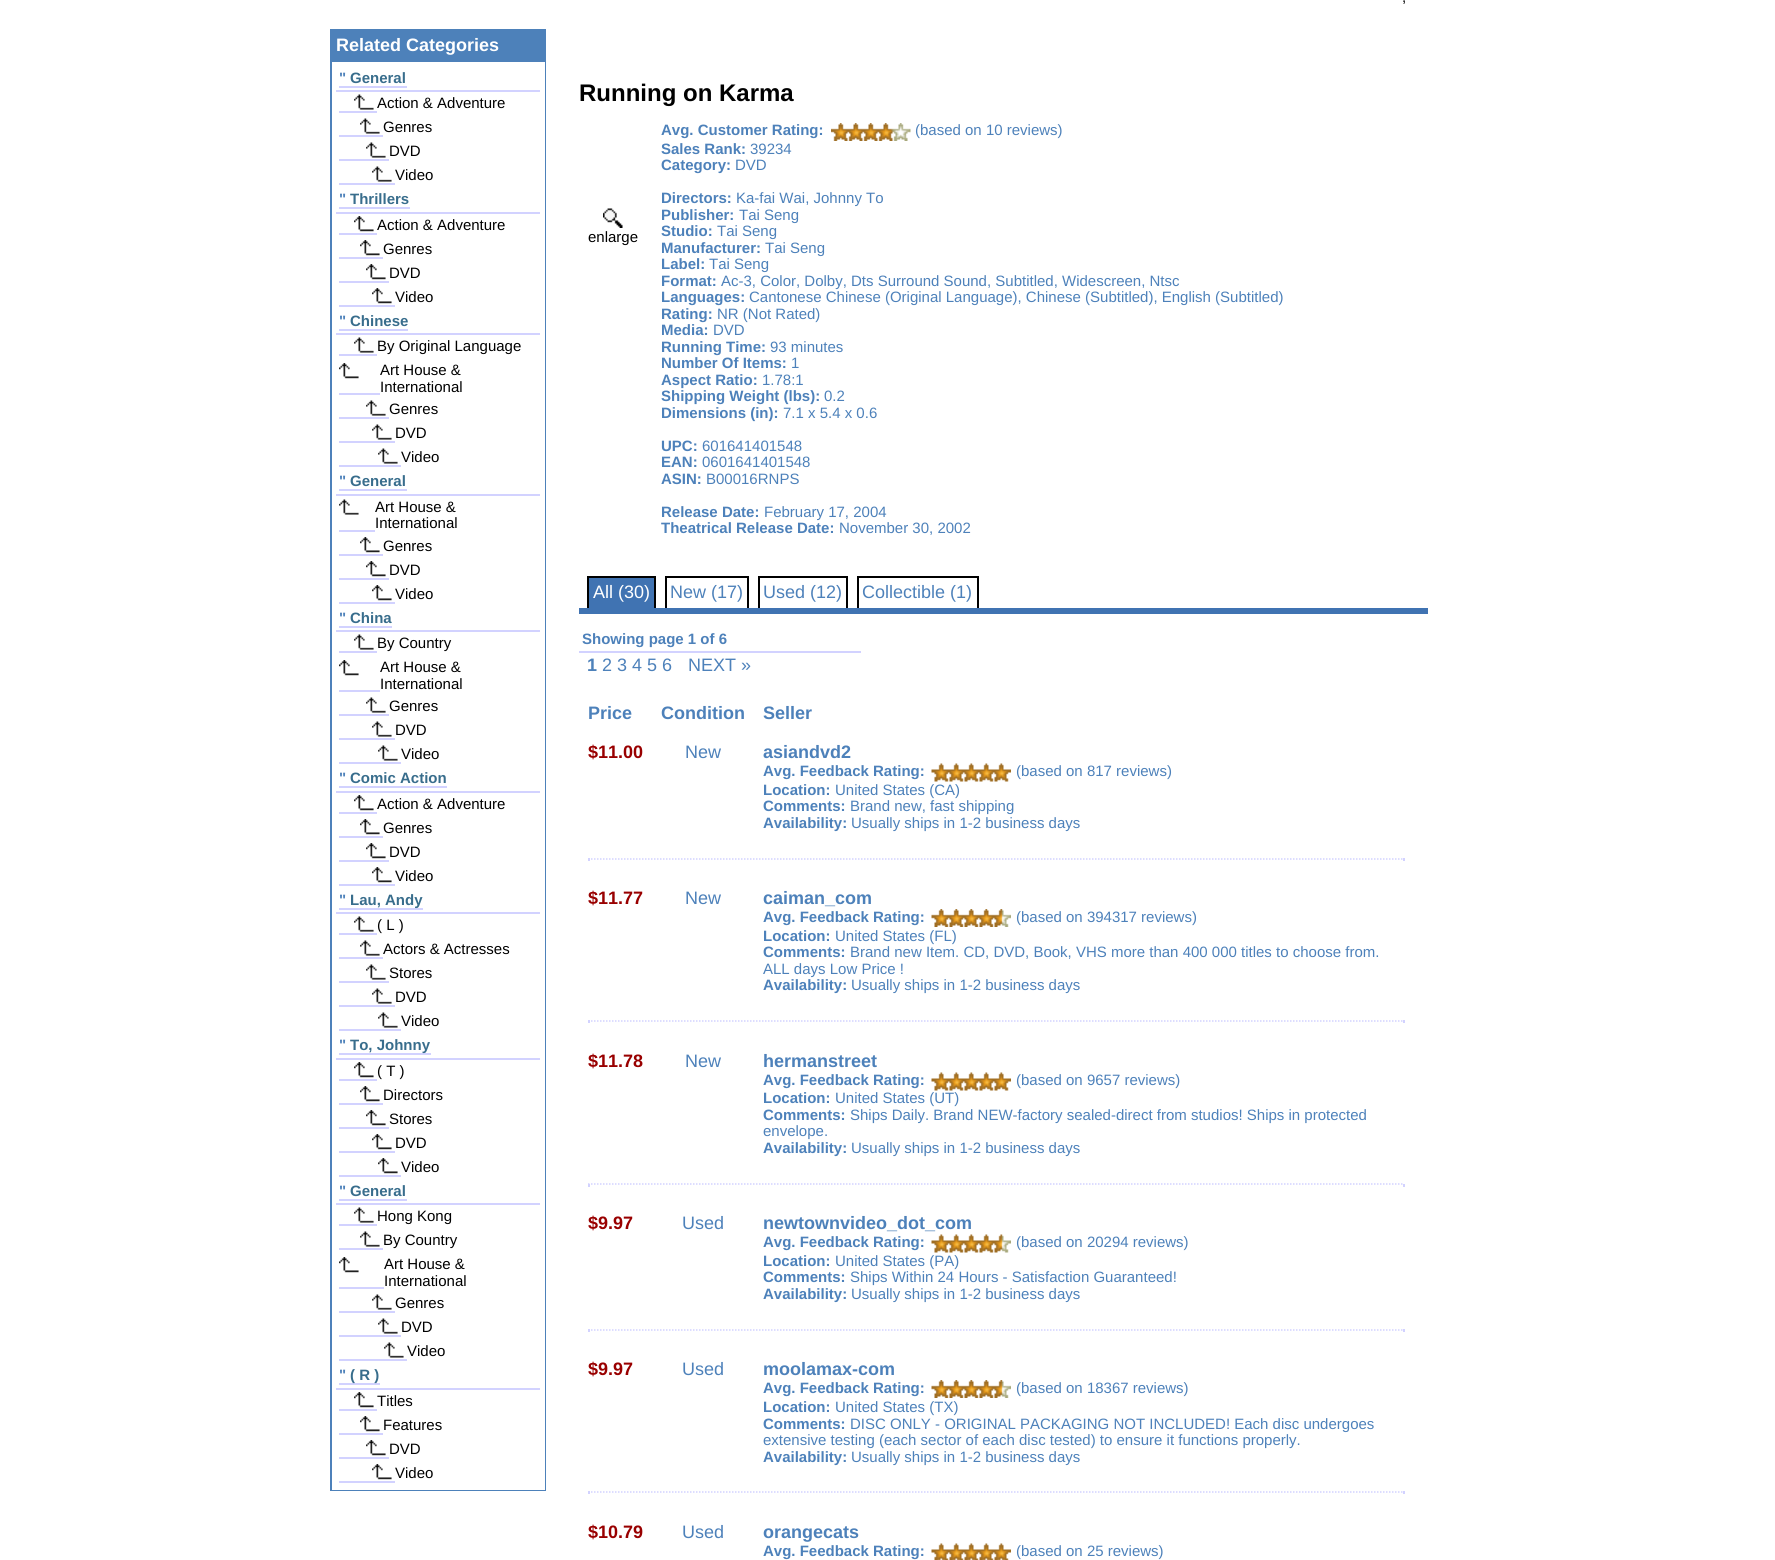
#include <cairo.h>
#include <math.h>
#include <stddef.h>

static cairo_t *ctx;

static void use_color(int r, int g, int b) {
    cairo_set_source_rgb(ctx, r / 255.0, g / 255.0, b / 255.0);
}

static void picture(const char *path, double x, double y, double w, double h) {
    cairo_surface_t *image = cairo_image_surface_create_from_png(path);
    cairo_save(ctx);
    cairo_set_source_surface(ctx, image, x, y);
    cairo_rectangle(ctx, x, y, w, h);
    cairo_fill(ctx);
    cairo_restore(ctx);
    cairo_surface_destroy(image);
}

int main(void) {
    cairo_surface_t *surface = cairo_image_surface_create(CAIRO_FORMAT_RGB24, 1775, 1560);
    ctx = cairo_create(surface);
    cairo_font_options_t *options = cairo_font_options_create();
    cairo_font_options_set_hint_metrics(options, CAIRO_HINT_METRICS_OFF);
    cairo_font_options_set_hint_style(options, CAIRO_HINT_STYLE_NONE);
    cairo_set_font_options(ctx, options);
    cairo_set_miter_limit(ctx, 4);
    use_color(255, 255, 255);
    cairo_paint(ctx);
    cairo_select_font_face(ctx, "Liberation Sans", CAIRO_FONT_SLANT_NORMAL, CAIRO_FONT_WEIGHT_NORMAL);
    cairo_set_font_size(ctx, 15);
    use_color(0, 0, 0);
    cairo_move_to(ctx, 1402, 2);
    cairo_show_text(ctx, ",");
    use_color(77, 129, 186);
    cairo_rectangle(ctx, 330, 29, 216, 1462);
    cairo_fill(ctx);
    cairo_select_font_face(ctx, "Liberation Sans", CAIRO_FONT_SLANT_NORMAL, CAIRO_FONT_WEIGHT_BOLD);
    cairo_set_font_size(ctx, 18);
    use_color(255, 255, 255);
    cairo_move_to(ctx, 336, 51);
    cairo_show_text(ctx, "Related Categories");
    cairo_rectangle(ctx, 332, 62, 213, 1428);
    cairo_fill(ctx);
    use_color(210, 210, 255);
    cairo_rectangle(ctx, 336, 90, 204, 2);
    cairo_fill(ctx);
    cairo_rectangle(ctx, 339, 86, 68, 2);
    cairo_fill(ctx);
    cairo_set_font_size(ctx, 15);
    use_color(77, 129, 186);
    cairo_move_to(ctx, 339, 83);
    cairo_show_text(ctx, "\"");
    use_color(56, 109, 140);
    cairo_move_to(ctx, 350, 83);
    cairo_show_text(ctx, "General");
    use_color(210, 210, 255);
    cairo_rectangle(ctx, 339, 111, 38, 2);
    cairo_fill(ctx);
    picture("img1.png", 354, 94, 20, 16);
    cairo_select_font_face(ctx, "Liberation Sans", CAIRO_FONT_SLANT_NORMAL, CAIRO_FONT_WEIGHT_NORMAL);
    use_color(0, 0, 0);
    cairo_move_to(ctx, 377, 108);
    cairo_show_text(ctx, "Action & Adventure");
    use_color(210, 210, 255);
    cairo_rectangle(ctx, 339, 135, 44, 2);
    cairo_fill(ctx);
    picture("img1.png", 360, 118, 20, 16);
    use_color(0, 0, 0);
    cairo_move_to(ctx, 383, 132);
    cairo_show_text(ctx, "Genres");
    use_color(210, 210, 255);
    cairo_rectangle(ctx, 339, 159, 50, 2);
    cairo_fill(ctx);
    picture("img1.png", 366, 142, 20, 16);
    use_color(0, 0, 0);
    cairo_move_to(ctx, 389, 156);
    cairo_show_text(ctx, "DVD");
    use_color(210, 210, 255);
    cairo_rectangle(ctx, 339, 183, 56, 2);
    cairo_fill(ctx);
    picture("img1.png", 372, 166, 20, 16);
    use_color(0, 0, 0);
    cairo_move_to(ctx, 395, 180);
    cairo_show_text(ctx, "Video");
    use_color(210, 210, 255);
    cairo_rectangle(ctx, 336, 212, 204, 2);
    cairo_fill(ctx);
    cairo_rectangle(ctx, 339, 207, 71, 2);
    cairo_fill(ctx);
    cairo_select_font_face(ctx, "Liberation Sans", CAIRO_FONT_SLANT_NORMAL, CAIRO_FONT_WEIGHT_BOLD);
    use_color(77, 129, 186);
    cairo_move_to(ctx, 339, 204);
    cairo_show_text(ctx, "\"");
    use_color(56, 109, 140);
    cairo_move_to(ctx, 350, 204);
    cairo_show_text(ctx, "Thrillers");
    use_color(210, 210, 255);
    cairo_rectangle(ctx, 339, 233, 38, 2);
    cairo_fill(ctx);
    picture("img2.png", 354, 216, 20, 16);
    cairo_select_font_face(ctx, "Liberation Sans", CAIRO_FONT_SLANT_NORMAL, CAIRO_FONT_WEIGHT_NORMAL);
    use_color(0, 0, 0);
    cairo_move_to(ctx, 377, 230);
    cairo_show_text(ctx, "Action & Adventure");
    use_color(210, 210, 255);
    cairo_rectangle(ctx, 339, 257, 44, 2);
    cairo_fill(ctx);
    picture("img2.png", 360, 240, 20, 16);
    use_color(0, 0, 0);
    cairo_move_to(ctx, 383, 254);
    cairo_show_text(ctx, "Genres");
    use_color(210, 210, 255);
    cairo_rectangle(ctx, 339, 281, 50, 2);
    cairo_fill(ctx);
    picture("img2.png", 366, 264, 20, 16);
    use_color(0, 0, 0);
    cairo_move_to(ctx, 389, 278);
    cairo_show_text(ctx, "DVD");
    use_color(210, 210, 255);
    cairo_rectangle(ctx, 339, 305, 56, 2);
    cairo_fill(ctx);
    picture("img2.png", 372, 288, 20, 16);
    use_color(0, 0, 0);
    cairo_move_to(ctx, 395, 302);
    cairo_show_text(ctx, "Video");
    use_color(210, 210, 255);
    cairo_rectangle(ctx, 336, 333, 204, 2);
    cairo_fill(ctx);
    cairo_rectangle(ctx, 339, 329, 69, 2);
    cairo_fill(ctx);
    cairo_select_font_face(ctx, "Liberation Sans", CAIRO_FONT_SLANT_NORMAL, CAIRO_FONT_WEIGHT_BOLD);
    use_color(77, 129, 186);
    cairo_move_to(ctx, 339, 326);
    cairo_show_text(ctx, "\"");
    use_color(56, 109, 140);
    cairo_move_to(ctx, 350, 326);
    cairo_show_text(ctx, "Chinese");
    use_color(210, 210, 255);
    cairo_rectangle(ctx, 339, 354, 38, 2);
    cairo_fill(ctx);
    picture("img1.png", 354, 337, 20, 16);
    cairo_select_font_face(ctx, "Liberation Sans", CAIRO_FONT_SLANT_NORMAL, CAIRO_FONT_WEIGHT_NORMAL);
    use_color(0, 0, 0);
    cairo_move_to(ctx, 377, 351);
    cairo_show_text(ctx, "By Original Language");
    use_color(210, 210, 255);
    cairo_rectangle(ctx, 339, 393, 41, 2);
    cairo_fill(ctx);
    picture("img2.png", 339, 363, 20, 16);
    use_color(0, 0, 0);
    cairo_move_to(ctx, 380, 375);
    cairo_show_text(ctx, "Art House &");
    cairo_move_to(ctx, 380, 392);
    cairo_show_text(ctx, "International");
    use_color(210, 210, 255);
    cairo_rectangle(ctx, 339, 417, 50, 2);
    cairo_fill(ctx);
    picture("img1.png", 366, 400, 20, 16);
    use_color(0, 0, 0);
    cairo_move_to(ctx, 389, 414);
    cairo_show_text(ctx, "Genres");
    use_color(210, 210, 255);
    cairo_rectangle(ctx, 339, 441, 56, 2);
    cairo_fill(ctx);
    picture("img1.png", 372, 424, 20, 16);
    use_color(0, 0, 0);
    cairo_move_to(ctx, 395, 438);
    cairo_show_text(ctx, "DVD");
    use_color(210, 210, 255);
    cairo_rectangle(ctx, 339, 465, 62, 2);
    cairo_fill(ctx);
    picture("img1.png", 378, 448, 20, 16);
    use_color(0, 0, 0);
    cairo_move_to(ctx, 401, 462);
    cairo_show_text(ctx, "Video");
    use_color(210, 210, 255);
    cairo_rectangle(ctx, 336, 494, 204, 2);
    cairo_fill(ctx);
    cairo_rectangle(ctx, 339, 489, 68, 2);
    cairo_fill(ctx);
    cairo_select_font_face(ctx, "Liberation Sans", CAIRO_FONT_SLANT_NORMAL, CAIRO_FONT_WEIGHT_BOLD);
    use_color(77, 129, 186);
    cairo_move_to(ctx, 339, 486);
    cairo_show_text(ctx, "\"");
    use_color(56, 109, 140);
    cairo_move_to(ctx, 350, 486);
    cairo_show_text(ctx, "General");
    use_color(210, 210, 255);
    cairo_rectangle(ctx, 339, 530, 36, 2);
    cairo_fill(ctx);
    picture("img1.png", 339, 499, 20, 16);
    cairo_select_font_face(ctx, "Liberation Sans", CAIRO_FONT_SLANT_NORMAL, CAIRO_FONT_WEIGHT_NORMAL);
    use_color(0, 0, 0);
    cairo_move_to(ctx, 375, 512);
    cairo_show_text(ctx, "Art House &");
    cairo_move_to(ctx, 375, 528);
    cairo_show_text(ctx, "International");
    use_color(210, 210, 255);
    cairo_rectangle(ctx, 339, 554, 44, 2);
    cairo_fill(ctx);
    picture("img2.png", 360, 537, 20, 16);
    use_color(0, 0, 0);
    cairo_move_to(ctx, 383, 551);
    cairo_show_text(ctx, "Genres");
    use_color(210, 210, 255);
    cairo_rectangle(ctx, 339, 578, 50, 2);
    cairo_fill(ctx);
    picture("img2.png", 366, 561, 20, 16);
    use_color(0, 0, 0);
    cairo_move_to(ctx, 389, 575);
    cairo_show_text(ctx, "DVD");
    use_color(210, 210, 255);
    cairo_rectangle(ctx, 339, 602, 56, 2);
    cairo_fill(ctx);
    picture("img2.png", 372, 585, 20, 16);
    use_color(0, 0, 0);
    cairo_move_to(ctx, 395, 599);
    cairo_show_text(ctx, "Video");
    use_color(210, 210, 255);
    cairo_rectangle(ctx, 336, 630, 204, 2);
    cairo_fill(ctx);
    cairo_rectangle(ctx, 339, 626, 53, 2);
    cairo_fill(ctx);
    cairo_select_font_face(ctx, "Liberation Sans", CAIRO_FONT_SLANT_NORMAL, CAIRO_FONT_WEIGHT_BOLD);
    use_color(77, 129, 186);
    cairo_move_to(ctx, 339, 623);
    cairo_show_text(ctx, "\"");
    use_color(56, 109, 140);
    cairo_move_to(ctx, 350, 623);
    cairo_show_text(ctx, "China");
    use_color(210, 210, 255);
    cairo_rectangle(ctx, 339, 651, 38, 2);
    cairo_fill(ctx);
    picture("img1.png", 354, 634, 20, 16);
    cairo_select_font_face(ctx, "Liberation Sans", CAIRO_FONT_SLANT_NORMAL, CAIRO_FONT_WEIGHT_NORMAL);
    use_color(0, 0, 0);
    cairo_move_to(ctx, 377, 648);
    cairo_show_text(ctx, "By Country");
    use_color(210, 210, 255);
    cairo_rectangle(ctx, 339, 690, 41, 2);
    cairo_fill(ctx);
    picture("img2.png", 339, 660, 20, 16);
    use_color(0, 0, 0);
    cairo_move_to(ctx, 380, 672);
    cairo_show_text(ctx, "Art House &");
    cairo_move_to(ctx, 380, 689);
    cairo_show_text(ctx, "International");
    use_color(210, 210, 255);
    cairo_rectangle(ctx, 339, 714, 50, 2);
    cairo_fill(ctx);
    picture("img1.png", 366, 697, 20, 16);
    use_color(0, 0, 0);
    cairo_move_to(ctx, 389, 711);
    cairo_show_text(ctx, "Genres");
    use_color(210, 210, 255);
    cairo_rectangle(ctx, 339, 738, 56, 2);
    cairo_fill(ctx);
    picture("img1.png", 372, 721, 20, 16);
    use_color(0, 0, 0);
    cairo_move_to(ctx, 395, 735);
    cairo_show_text(ctx, "DVD");
    use_color(210, 210, 255);
    cairo_rectangle(ctx, 339, 762, 62, 2);
    cairo_fill(ctx);
    picture("img1.png", 378, 745, 20, 16);
    use_color(0, 0, 0);
    cairo_move_to(ctx, 401, 759);
    cairo_show_text(ctx, "Video");
    use_color(210, 210, 255);
    cairo_rectangle(ctx, 336, 791, 204, 2);
    cairo_fill(ctx);
    cairo_rectangle(ctx, 339, 786, 108, 2);
    cairo_fill(ctx);
    cairo_select_font_face(ctx, "Liberation Sans", CAIRO_FONT_SLANT_NORMAL, CAIRO_FONT_WEIGHT_BOLD);
    use_color(77, 129, 186);
    cairo_move_to(ctx, 339, 783);
    cairo_show_text(ctx, "\"");
    use_color(56, 109, 140);
    cairo_move_to(ctx, 350, 783);
    cairo_show_text(ctx, "Comic Action");
    use_color(210, 210, 255);
    cairo_rectangle(ctx, 339, 812, 38, 2);
    cairo_fill(ctx);
    picture("img2.png", 354, 795, 20, 16);
    cairo_select_font_face(ctx, "Liberation Sans", CAIRO_FONT_SLANT_NORMAL, CAIRO_FONT_WEIGHT_NORMAL);
    use_color(0, 0, 0);
    cairo_move_to(ctx, 377, 809);
    cairo_show_text(ctx, "Action & Adventure");
    use_color(210, 210, 255);
    cairo_rectangle(ctx, 339, 836, 44, 2);
    cairo_fill(ctx);
    picture("img2.png", 360, 819, 20, 16);
    use_color(0, 0, 0);
    cairo_move_to(ctx, 383, 833);
    cairo_show_text(ctx, "Genres");
    use_color(210, 210, 255);
    cairo_rectangle(ctx, 339, 860, 50, 2);
    cairo_fill(ctx);
    picture("img2.png", 366, 843, 20, 16);
    use_color(0, 0, 0);
    cairo_move_to(ctx, 389, 857);
    cairo_show_text(ctx, "DVD");
    use_color(210, 210, 255);
    cairo_rectangle(ctx, 339, 884, 56, 2);
    cairo_fill(ctx);
    picture("img2.png", 372, 867, 20, 16);
    use_color(0, 0, 0);
    cairo_move_to(ctx, 395, 881);
    cairo_show_text(ctx, "Video");
    use_color(210, 210, 255);
    cairo_rectangle(ctx, 336, 912, 204, 2);
    cairo_fill(ctx);
    cairo_rectangle(ctx, 339, 908, 84, 2);
    cairo_fill(ctx);
    cairo_select_font_face(ctx, "Liberation Sans", CAIRO_FONT_SLANT_NORMAL, CAIRO_FONT_WEIGHT_BOLD);
    use_color(77, 129, 186);
    cairo_move_to(ctx, 339, 905);
    cairo_show_text(ctx, "\"");
    use_color(56, 109, 140);
    cairo_move_to(ctx, 350, 905);
    cairo_show_text(ctx, "Lau, Andy");
    use_color(210, 210, 255);
    cairo_rectangle(ctx, 339, 933, 38, 2);
    cairo_fill(ctx);
    picture("img1.png", 354, 916, 20, 16);
    cairo_select_font_face(ctx, "Liberation Sans", CAIRO_FONT_SLANT_NORMAL, CAIRO_FONT_WEIGHT_NORMAL);
    use_color(0, 0, 0);
    cairo_move_to(ctx, 377, 930);
    cairo_show_text(ctx, "( L )");
    use_color(210, 210, 255);
    cairo_rectangle(ctx, 339, 957, 44, 2);
    cairo_fill(ctx);
    picture("img1.png", 360, 940, 20, 16);
    use_color(0, 0, 0);
    cairo_move_to(ctx, 383, 954);
    cairo_show_text(ctx, "Actors & Actresses");
    use_color(210, 210, 255);
    cairo_rectangle(ctx, 339, 981, 50, 2);
    cairo_fill(ctx);
    picture("img1.png", 366, 964, 20, 16);
    use_color(0, 0, 0);
    cairo_move_to(ctx, 389, 978);
    cairo_show_text(ctx, "Stores");
    use_color(210, 210, 255);
    cairo_rectangle(ctx, 339, 1005, 56, 2);
    cairo_fill(ctx);
    picture("img1.png", 372, 988, 20, 16);
    use_color(0, 0, 0);
    cairo_move_to(ctx, 395, 1002);
    cairo_show_text(ctx, "DVD");
    use_color(210, 210, 255);
    cairo_rectangle(ctx, 339, 1029, 62, 2);
    cairo_fill(ctx);
    picture("img1.png", 378, 1012, 20, 16);
    use_color(0, 0, 0);
    cairo_move_to(ctx, 401, 1026);
    cairo_show_text(ctx, "Video");
    use_color(210, 210, 255);
    cairo_rectangle(ctx, 336, 1058, 204, 2);
    cairo_fill(ctx);
    cairo_rectangle(ctx, 339, 1053, 92, 2);
    cairo_fill(ctx);
    cairo_select_font_face(ctx, "Liberation Sans", CAIRO_FONT_SLANT_NORMAL, CAIRO_FONT_WEIGHT_BOLD);
    use_color(77, 129, 186);
    cairo_move_to(ctx, 339, 1050);
    cairo_show_text(ctx, "\"");
    use_color(56, 109, 140);
    cairo_move_to(ctx, 350, 1050);
    cairo_show_text(ctx, "To, Johnny");
    use_color(210, 210, 255);
    cairo_rectangle(ctx, 339, 1079, 38, 2);
    cairo_fill(ctx);
    picture("img2.png", 354, 1062, 20, 16);
    cairo_select_font_face(ctx, "Liberation Sans", CAIRO_FONT_SLANT_NORMAL, CAIRO_FONT_WEIGHT_NORMAL);
    use_color(0, 0, 0);
    cairo_move_to(ctx, 377, 1076);
    cairo_show_text(ctx, "( T )");
    use_color(210, 210, 255);
    cairo_rectangle(ctx, 339, 1103, 44, 2);
    cairo_fill(ctx);
    picture("img2.png", 360, 1086, 20, 16);
    use_color(0, 0, 0);
    cairo_move_to(ctx, 383, 1100);
    cairo_show_text(ctx, "Directors");
    use_color(210, 210, 255);
    cairo_rectangle(ctx, 339, 1127, 50, 2);
    cairo_fill(ctx);
    picture("img2.png", 366, 1110, 20, 16);
    use_color(0, 0, 0);
    cairo_move_to(ctx, 389, 1124);
    cairo_show_text(ctx, "Stores");
    use_color(210, 210, 255);
    cairo_rectangle(ctx, 339, 1151, 56, 2);
    cairo_fill(ctx);
    picture("img2.png", 372, 1134, 20, 16);
    use_color(0, 0, 0);
    cairo_move_to(ctx, 395, 1148);
    cairo_show_text(ctx, "DVD");
    use_color(210, 210, 255);
    cairo_rectangle(ctx, 339, 1175, 62, 2);
    cairo_fill(ctx);
    picture("img2.png", 378, 1158, 20, 16);
    use_color(0, 0, 0);
    cairo_move_to(ctx, 401, 1172);
    cairo_show_text(ctx, "Video");
    use_color(210, 210, 255);
    cairo_rectangle(ctx, 336, 1203, 204, 2);
    cairo_fill(ctx);
    cairo_rectangle(ctx, 339, 1199, 68, 2);
    cairo_fill(ctx);
    cairo_select_font_face(ctx, "Liberation Sans", CAIRO_FONT_SLANT_NORMAL, CAIRO_FONT_WEIGHT_BOLD);
    use_color(77, 129, 186);
    cairo_move_to(ctx, 339, 1196);
    cairo_show_text(ctx, "\"");
    use_color(56, 109, 140);
    cairo_move_to(ctx, 350, 1196);
    cairo_show_text(ctx, "General");
    use_color(210, 210, 255);
    cairo_rectangle(ctx, 339, 1224, 38, 2);
    cairo_fill(ctx);
    picture("img1.png", 354, 1207, 20, 16);
    cairo_select_font_face(ctx, "Liberation Sans", CAIRO_FONT_SLANT_NORMAL, CAIRO_FONT_WEIGHT_NORMAL);
    use_color(0, 0, 0);
    cairo_move_to(ctx, 377, 1221);
    cairo_show_text(ctx, "Hong Kong");
    use_color(210, 210, 255);
    cairo_rectangle(ctx, 339, 1248, 44, 2);
    cairo_fill(ctx);
    picture("img1.png", 360, 1231, 20, 16);
    use_color(0, 0, 0);
    cairo_move_to(ctx, 383, 1245);
    cairo_show_text(ctx, "By Country");
    use_color(210, 210, 255);
    cairo_rectangle(ctx, 339, 1287, 45, 2);
    cairo_fill(ctx);
    picture("img2.png", 339, 1257, 20, 16);
    use_color(0, 0, 0);
    cairo_move_to(ctx, 384, 1269);
    cairo_show_text(ctx, "Art House &");
    cairo_move_to(ctx, 384, 1286);
    cairo_show_text(ctx, "International");
    use_color(210, 210, 255);
    cairo_rectangle(ctx, 339, 1311, 56, 2);
    cairo_fill(ctx);
    picture("img1.png", 372, 1294, 20, 16);
    use_color(0, 0, 0);
    cairo_move_to(ctx, 395, 1308);
    cairo_show_text(ctx, "Genres");
    use_color(210, 210, 255);
    cairo_rectangle(ctx, 339, 1335, 62, 2);
    cairo_fill(ctx);
    picture("img1.png", 378, 1318, 20, 16);
    use_color(0, 0, 0);
    cairo_move_to(ctx, 401, 1332);
    cairo_show_text(ctx, "DVD");
    use_color(210, 210, 255);
    cairo_rectangle(ctx, 339, 1359, 68, 2);
    cairo_fill(ctx);
    picture("img1.png", 384, 1342, 20, 16);
    use_color(0, 0, 0);
    cairo_move_to(ctx, 407, 1356);
    cairo_show_text(ctx, "Video");
    use_color(210, 210, 255);
    cairo_rectangle(ctx, 336, 1388, 204, 2);
    cairo_fill(ctx);
    cairo_rectangle(ctx, 339, 1383, 41, 2);
    cairo_fill(ctx);
    cairo_select_font_face(ctx, "Liberation Sans", CAIRO_FONT_SLANT_NORMAL, CAIRO_FONT_WEIGHT_BOLD);
    use_color(77, 129, 186);
    cairo_move_to(ctx, 339, 1380);
    cairo_show_text(ctx, "\"");
    use_color(56, 109, 140);
    cairo_move_to(ctx, 350, 1380);
    cairo_show_text(ctx, "( R )");
    use_color(210, 210, 255);
    cairo_rectangle(ctx, 339, 1409, 38, 2);
    cairo_fill(ctx);
    picture("img2.png", 354, 1392, 20, 16);
    cairo_select_font_face(ctx, "Liberation Sans", CAIRO_FONT_SLANT_NORMAL, CAIRO_FONT_WEIGHT_NORMAL);
    use_color(0, 0, 0);
    cairo_move_to(ctx, 377, 1406);
    cairo_show_text(ctx, "Titles");
    use_color(210, 210, 255);
    cairo_rectangle(ctx, 339, 1433, 44, 2);
    cairo_fill(ctx);
    picture("img2.png", 360, 1416, 20, 16);
    use_color(0, 0, 0);
    cairo_move_to(ctx, 383, 1430);
    cairo_show_text(ctx, "Features");
    use_color(210, 210, 255);
    cairo_rectangle(ctx, 339, 1457, 50, 2);
    cairo_fill(ctx);
    picture("img2.png", 366, 1440, 20, 16);
    use_color(0, 0, 0);
    cairo_move_to(ctx, 389, 1454);
    cairo_show_text(ctx, "DVD");
    use_color(210, 210, 255);
    cairo_rectangle(ctx, 339, 1481, 56, 2);
    cairo_fill(ctx);
    picture("img2.png", 372, 1464, 20, 16);
    use_color(0, 0, 0);
    cairo_move_to(ctx, 395, 1478);
    cairo_show_text(ctx, "Video");
    cairo_select_font_face(ctx, "Liberation Sans", CAIRO_FONT_SLANT_NORMAL, CAIRO_FONT_WEIGHT_BOLD);
    cairo_set_font_size(ctx, 24);
    cairo_move_to(ctx, 579, 101);
    cairo_show_text(ctx, "Running on Karma");
    picture("img3.png", 603, 208, 20, 20);
    cairo_select_font_face(ctx, "Liberation Sans", CAIRO_FONT_SLANT_NORMAL, CAIRO_FONT_WEIGHT_NORMAL);
    cairo_set_font_size(ctx, 15);
    cairo_move_to(ctx, 588, 242);
    cairo_show_text(ctx, "enlarge");
    cairo_select_font_face(ctx, "Liberation Sans", CAIRO_FONT_SLANT_NORMAL, CAIRO_FONT_WEIGHT_BOLD);
    use_color(77, 129, 186);
    cairo_move_to(ctx, 661, 135);
    cairo_show_text(ctx, "Avg. Customer Rating:");
    picture("img4.png", 831, 123, 80, 18);
    cairo_select_font_face(ctx, "Liberation Sans", CAIRO_FONT_SLANT_NORMAL, CAIRO_FONT_WEIGHT_NORMAL);
    cairo_move_to(ctx, 915, 135);
    cairo_show_text(ctx, "(based on 10 reviews)");
    cairo_select_font_face(ctx, "Liberation Sans", CAIRO_FONT_SLANT_NORMAL, CAIRO_FONT_WEIGHT_BOLD);
    cairo_move_to(ctx, 661, 154);
    cairo_show_text(ctx, "Sales Rank:");
    cairo_select_font_face(ctx, "Liberation Sans", CAIRO_FONT_SLANT_NORMAL, CAIRO_FONT_WEIGHT_NORMAL);
    cairo_move_to(ctx, 750, 154);
    cairo_show_text(ctx, "39234");
    cairo_select_font_face(ctx, "Liberation Sans", CAIRO_FONT_SLANT_NORMAL, CAIRO_FONT_WEIGHT_BOLD);
    cairo_move_to(ctx, 661, 170);
    cairo_show_text(ctx, "Category:");
    cairo_select_font_face(ctx, "Liberation Sans", CAIRO_FONT_SLANT_NORMAL, CAIRO_FONT_WEIGHT_NORMAL);
    cairo_move_to(ctx, 735, 170);
    cairo_show_text(ctx, "DVD");
    cairo_select_font_face(ctx, "Liberation Sans", CAIRO_FONT_SLANT_NORMAL, CAIRO_FONT_WEIGHT_BOLD);
    cairo_move_to(ctx, 661, 203);
    cairo_show_text(ctx, "Directors:");
    cairo_select_font_face(ctx, "Liberation Sans", CAIRO_FONT_SLANT_NORMAL, CAIRO_FONT_WEIGHT_NORMAL);
    cairo_move_to(ctx, 736, 203);
    cairo_show_text(ctx, "Ka-fai Wai, Johnny To");
    cairo_select_font_face(ctx, "Liberation Sans", CAIRO_FONT_SLANT_NORMAL, CAIRO_FONT_WEIGHT_BOLD);
    cairo_move_to(ctx, 661, 220);
    cairo_show_text(ctx, "Publisher:");
    cairo_select_font_face(ctx, "Liberation Sans", CAIRO_FONT_SLANT_NORMAL, CAIRO_FONT_WEIGHT_NORMAL);
    cairo_move_to(ctx, 739, 220);
    cairo_show_text(ctx, "Tai Seng");
    cairo_select_font_face(ctx, "Liberation Sans", CAIRO_FONT_SLANT_NORMAL, CAIRO_FONT_WEIGHT_BOLD);
    cairo_move_to(ctx, 661, 236);
    cairo_show_text(ctx, "Studio:");
    cairo_select_font_face(ctx, "Liberation Sans", CAIRO_FONT_SLANT_NORMAL, CAIRO_FONT_WEIGHT_NORMAL);
    cairo_move_to(ctx, 717, 236);
    cairo_show_text(ctx, "Tai Seng");
    cairo_select_font_face(ctx, "Liberation Sans", CAIRO_FONT_SLANT_NORMAL, CAIRO_FONT_WEIGHT_BOLD);
    cairo_move_to(ctx, 661, 253);
    cairo_show_text(ctx, "Manufacturer:");
    cairo_select_font_face(ctx, "Liberation Sans", CAIRO_FONT_SLANT_NORMAL, CAIRO_FONT_WEIGHT_NORMAL);
    cairo_move_to(ctx, 765, 253);
    cairo_show_text(ctx, "Tai Seng");
    cairo_select_font_face(ctx, "Liberation Sans", CAIRO_FONT_SLANT_NORMAL, CAIRO_FONT_WEIGHT_BOLD);
    cairo_move_to(ctx, 661, 269);
    cairo_show_text(ctx, "Label:");
    cairo_select_font_face(ctx, "Liberation Sans", CAIRO_FONT_SLANT_NORMAL, CAIRO_FONT_WEIGHT_NORMAL);
    cairo_move_to(ctx, 709, 269);
    cairo_show_text(ctx, "Tai Seng");
    cairo_select_font_face(ctx, "Liberation Sans", CAIRO_FONT_SLANT_NORMAL, CAIRO_FONT_WEIGHT_BOLD);
    cairo_move_to(ctx, 661, 286);
    cairo_show_text(ctx, "Format:");
    cairo_select_font_face(ctx, "Liberation Sans", CAIRO_FONT_SLANT_NORMAL, CAIRO_FONT_WEIGHT_NORMAL);
    cairo_move_to(ctx, 721, 286);
    cairo_show_text(ctx, "Ac-3, Color, Dolby, Dts Surround Sound, Subtitled, Widescreen, Ntsc");
    cairo_select_font_face(ctx, "Liberation Sans", CAIRO_FONT_SLANT_NORMAL, CAIRO_FONT_WEIGHT_BOLD);
    cairo_move_to(ctx, 661, 302);
    cairo_show_text(ctx, "Languages:");
    cairo_select_font_face(ctx, "Liberation Sans", CAIRO_FONT_SLANT_NORMAL, CAIRO_FONT_WEIGHT_NORMAL);
    cairo_move_to(ctx, 749, 302);
    cairo_show_text(ctx, "Cantonese Chinese (Original Language), Chinese (Subtitled), English (Subtitled)");
    cairo_select_font_face(ctx, "Liberation Sans", CAIRO_FONT_SLANT_NORMAL, CAIRO_FONT_WEIGHT_BOLD);
    cairo_move_to(ctx, 661, 319);
    cairo_show_text(ctx, "Rating:");
    cairo_select_font_face(ctx, "Liberation Sans", CAIRO_FONT_SLANT_NORMAL, CAIRO_FONT_WEIGHT_NORMAL);
    cairo_move_to(ctx, 717, 319);
    cairo_show_text(ctx, "NR (Not Rated)");
    cairo_select_font_face(ctx, "Liberation Sans", CAIRO_FONT_SLANT_NORMAL, CAIRO_FONT_WEIGHT_BOLD);
    cairo_move_to(ctx, 661, 335);
    cairo_show_text(ctx, "Media:");
    cairo_select_font_face(ctx, "Liberation Sans", CAIRO_FONT_SLANT_NORMAL, CAIRO_FONT_WEIGHT_NORMAL);
    cairo_move_to(ctx, 713, 335);
    cairo_show_text(ctx, "DVD");
    cairo_select_font_face(ctx, "Liberation Sans", CAIRO_FONT_SLANT_NORMAL, CAIRO_FONT_WEIGHT_BOLD);
    cairo_move_to(ctx, 661, 352);
    cairo_show_text(ctx, "Running Time:");
    cairo_select_font_face(ctx, "Liberation Sans", CAIRO_FONT_SLANT_NORMAL, CAIRO_FONT_WEIGHT_NORMAL);
    cairo_move_to(ctx, 770, 352);
    cairo_show_text(ctx, "93 minutes");
    cairo_select_font_face(ctx, "Liberation Sans", CAIRO_FONT_SLANT_NORMAL, CAIRO_FONT_WEIGHT_BOLD);
    cairo_move_to(ctx, 661, 368);
    cairo_show_text(ctx, "Number Of Items:");
    cairo_select_font_face(ctx, "Liberation Sans", CAIRO_FONT_SLANT_NORMAL, CAIRO_FONT_WEIGHT_NORMAL);
    cairo_move_to(ctx, 791, 368);
    cairo_show_text(ctx, "1");
    cairo_select_font_face(ctx, "Liberation Sans", CAIRO_FONT_SLANT_NORMAL, CAIRO_FONT_WEIGHT_BOLD);
    cairo_move_to(ctx, 661, 385);
    cairo_show_text(ctx, "Aspect Ratio:");
    cairo_select_font_face(ctx, "Liberation Sans", CAIRO_FONT_SLANT_NORMAL, CAIRO_FONT_WEIGHT_NORMAL);
    cairo_move_to(ctx, 762, 385);
    cairo_show_text(ctx, "1.78:1");
    cairo_select_font_face(ctx, "Liberation Sans", CAIRO_FONT_SLANT_NORMAL, CAIRO_FONT_WEIGHT_BOLD);
    cairo_move_to(ctx, 661, 401);
    cairo_show_text(ctx, "Shipping Weight (lbs):");
    cairo_select_font_face(ctx, "Liberation Sans", CAIRO_FONT_SLANT_NORMAL, CAIRO_FONT_WEIGHT_NORMAL);
    cairo_move_to(ctx, 824, 401);
    cairo_show_text(ctx, "0.2");
    cairo_select_font_face(ctx, "Liberation Sans", CAIRO_FONT_SLANT_NORMAL, CAIRO_FONT_WEIGHT_BOLD);
    cairo_move_to(ctx, 661, 418);
    cairo_show_text(ctx, "Dimensions (in):");
    cairo_select_font_face(ctx, "Liberation Sans", CAIRO_FONT_SLANT_NORMAL, CAIRO_FONT_WEIGHT_NORMAL);
    cairo_move_to(ctx, 783, 418);
    cairo_show_text(ctx, "7.1 x 5.4 x 0.6");
    cairo_select_font_face(ctx, "Liberation Sans", CAIRO_FONT_SLANT_NORMAL, CAIRO_FONT_WEIGHT_BOLD);
    cairo_move_to(ctx, 661, 451);
    cairo_show_text(ctx, "UPC:");
    cairo_select_font_face(ctx, "Liberation Sans", CAIRO_FONT_SLANT_NORMAL, CAIRO_FONT_WEIGHT_NORMAL);
    cairo_move_to(ctx, 702, 451);
    cairo_show_text(ctx, "601641401548");
    cairo_select_font_face(ctx, "Liberation Sans", CAIRO_FONT_SLANT_NORMAL, CAIRO_FONT_WEIGHT_BOLD);
    cairo_move_to(ctx, 661, 467);
    cairo_show_text(ctx, "EAN:");
    cairo_select_font_face(ctx, "Liberation Sans", CAIRO_FONT_SLANT_NORMAL, CAIRO_FONT_WEIGHT_NORMAL);
    cairo_move_to(ctx, 702, 467);
    cairo_show_text(ctx, "0601641401548");
    cairo_select_font_face(ctx, "Liberation Sans", CAIRO_FONT_SLANT_NORMAL, CAIRO_FONT_WEIGHT_BOLD);
    cairo_move_to(ctx, 661, 484);
    cairo_show_text(ctx, "ASIN:");
    cairo_select_font_face(ctx, "Liberation Sans", CAIRO_FONT_SLANT_NORMAL, CAIRO_FONT_WEIGHT_NORMAL);
    cairo_move_to(ctx, 706, 484);
    cairo_show_text(ctx, "B00016RNPS");
    cairo_select_font_face(ctx, "Liberation Sans", CAIRO_FONT_SLANT_NORMAL, CAIRO_FONT_WEIGHT_BOLD);
    cairo_move_to(ctx, 661, 517);
    cairo_show_text(ctx, "Release Date:");
    cairo_select_font_face(ctx, "Liberation Sans", CAIRO_FONT_SLANT_NORMAL, CAIRO_FONT_WEIGHT_NORMAL);
    cairo_move_to(ctx, 764, 517);
    cairo_show_text(ctx, "February 17, 2004");
    cairo_select_font_face(ctx, "Liberation Sans", CAIRO_FONT_SLANT_NORMAL, CAIRO_FONT_WEIGHT_BOLD);
    cairo_move_to(ctx, 661, 533);
    cairo_show_text(ctx, "Theatrical Release Date:");
    cairo_select_font_face(ctx, "Liberation Sans", CAIRO_FONT_SLANT_NORMAL, CAIRO_FONT_WEIGHT_NORMAL);
    cairo_move_to(ctx, 839, 533);
    cairo_show_text(ctx, "November 30, 2002");
    use_color(64, 115, 178);
    cairo_rectangle(ctx, 589, 578, 65, 30);
    cairo_fill(ctx);
    use_color(0, 0, 0);
    cairo_rectangle(ctx, 587, 576, 69, 2);
    cairo_fill(ctx);
    cairo_rectangle(ctx, 654, 576, 2, 32);
    cairo_fill(ctx);
    cairo_rectangle(ctx, 587, 576, 2, 32);
    cairo_fill(ctx);
    cairo_set_font_size(ctx, 18);
    use_color(255, 255, 255);
    cairo_move_to(ctx, 593, 598);
    cairo_show_text(ctx, "All (30)");
    use_color(0, 0, 0);
    cairo_rectangle(ctx, 665, 576, 84, 2);
    cairo_fill(ctx);
    cairo_rectangle(ctx, 747, 576, 2, 32);
    cairo_fill(ctx);
    cairo_rectangle(ctx, 665, 576, 2, 32);
    cairo_fill(ctx);
    use_color(77, 129, 186);
    cairo_move_to(ctx, 670, 598);
    cairo_show_text(ctx, "New (17)");
    use_color(0, 0, 0);
    cairo_rectangle(ctx, 758, 576, 90, 2);
    cairo_fill(ctx);
    cairo_rectangle(ctx, 846, 576, 2, 32);
    cairo_fill(ctx);
    cairo_rectangle(ctx, 758, 576, 2, 32);
    cairo_fill(ctx);
    use_color(77, 129, 186);
    cairo_move_to(ctx, 763, 598);
    cairo_show_text(ctx, "Used (12)");
    use_color(0, 0, 0);
    cairo_rectangle(ctx, 857, 576, 121, 2);
    cairo_fill(ctx);
    cairo_rectangle(ctx, 977, 576, 2, 32);
    cairo_fill(ctx);
    cairo_rectangle(ctx, 857, 576, 2, 32);
    cairo_fill(ctx);
    use_color(77, 129, 186);
    cairo_move_to(ctx, 862, 598);
    cairo_show_text(ctx, "Collectible (1)");
    use_color(64, 115, 178);
    cairo_rectangle(ctx, 579, 608, 849, 6);
    cairo_fill(ctx);
    use_color(210, 210, 255);
    cairo_rectangle(ctx, 579, 651, 282, 2);
    cairo_fill(ctx);
    cairo_select_font_face(ctx, "Liberation Sans", CAIRO_FONT_SLANT_NORMAL, CAIRO_FONT_WEIGHT_BOLD);
    cairo_set_font_size(ctx, 15);
    use_color(77, 129, 186);
    cairo_move_to(ctx, 582, 644);
    cairo_show_text(ctx, "Showing page 1 of 6");
    cairo_set_font_size(ctx, 18);
    cairo_move_to(ctx, 587, 671);
    cairo_show_text(ctx, "1");
    cairo_select_font_face(ctx, "Liberation Sans", CAIRO_FONT_SLANT_NORMAL, CAIRO_FONT_WEIGHT_NORMAL);
    cairo_move_to(ctx, 602, 671);
    cairo_show_text(ctx, "2 3 4 5 6");
    cairo_move_to(ctx, 688, 671);
    cairo_show_text(ctx, "NEXT »");
    cairo_select_font_face(ctx, "Liberation Sans", CAIRO_FONT_SLANT_NORMAL, CAIRO_FONT_WEIGHT_BOLD);
    cairo_move_to(ctx, 588, 719);
    cairo_show_text(ctx, "Price");
    cairo_move_to(ctx, 661, 719);
    cairo_show_text(ctx, "Condition");
    cairo_move_to(ctx, 763, 719);
    cairo_show_text(ctx, "Seller");
    use_color(153, 0, 0);
    cairo_move_to(ctx, 588, 758);
    cairo_show_text(ctx, "$11.00");
    cairo_select_font_face(ctx, "Liberation Sans", CAIRO_FONT_SLANT_NORMAL, CAIRO_FONT_WEIGHT_NORMAL);
    use_color(77, 129, 186);
    cairo_move_to(ctx, 685, 758);
    cairo_show_text(ctx, "New");
    cairo_select_font_face(ctx, "Liberation Sans", CAIRO_FONT_SLANT_NORMAL, CAIRO_FONT_WEIGHT_BOLD);
    cairo_move_to(ctx, 763, 758);
    cairo_show_text(ctx, "asiandvd2");
    cairo_set_font_size(ctx, 15);
    cairo_move_to(ctx, 763, 776);
    cairo_show_text(ctx, "Avg. Feedback Rating:");
    picture("img5.png", 931, 763, 80, 19);
    cairo_select_font_face(ctx, "Liberation Sans", CAIRO_FONT_SLANT_NORMAL, CAIRO_FONT_WEIGHT_NORMAL);
    cairo_move_to(ctx, 1016, 776);
    cairo_show_text(ctx, "(based on 817 reviews)");
    cairo_select_font_face(ctx, "Liberation Sans", CAIRO_FONT_SLANT_NORMAL, CAIRO_FONT_WEIGHT_BOLD);
    cairo_move_to(ctx, 763, 795);
    cairo_show_text(ctx, "Location:");
    cairo_select_font_face(ctx, "Liberation Sans", CAIRO_FONT_SLANT_NORMAL, CAIRO_FONT_WEIGHT_NORMAL);
    cairo_move_to(ctx, 835, 795);
    cairo_show_text(ctx, "United States (CA)");
    cairo_select_font_face(ctx, "Liberation Sans", CAIRO_FONT_SLANT_NORMAL, CAIRO_FONT_WEIGHT_BOLD);
    cairo_move_to(ctx, 763, 811);
    cairo_show_text(ctx, "Comments:");
    cairo_select_font_face(ctx, "Liberation Sans", CAIRO_FONT_SLANT_NORMAL, CAIRO_FONT_WEIGHT_NORMAL);
    cairo_move_to(ctx, 850, 811);
    cairo_show_text(ctx, "Brand new, fast shipping");
    cairo_select_font_face(ctx, "Liberation Sans", CAIRO_FONT_SLANT_NORMAL, CAIRO_FONT_WEIGHT_BOLD);
    cairo_move_to(ctx, 763, 828);
    cairo_show_text(ctx, "Availability:");
    cairo_select_font_face(ctx, "Liberation Sans", CAIRO_FONT_SLANT_NORMAL, CAIRO_FONT_WEIGHT_NORMAL);
    cairo_move_to(ctx, 851, 828);
    cairo_show_text(ctx, "Usually ships in 1-2 business days");
    cairo_new_path(ctx);
    cairo_move_to(ctx, 588, 859);
    cairo_line_to(ctx, 1404, 859);
    use_color(210, 210, 255);
    cairo_set_line_width(ctx, 1.5);
    cairo_set_dash(ctx, (double[]){1.5, 1.5}, 2, 0);
    cairo_stroke(ctx);
    cairo_rectangle(ctx, 1403, 858, 2, 3);
    cairo_fill(ctx);
    cairo_rectangle(ctx, 588, 858, 2, 3);
    cairo_fill(ctx);
    cairo_select_font_face(ctx, "Liberation Sans", CAIRO_FONT_SLANT_NORMAL, CAIRO_FONT_WEIGHT_BOLD);
    cairo_set_font_size(ctx, 18);
    use_color(153, 0, 0);
    cairo_move_to(ctx, 588, 904);
    cairo_show_text(ctx, "$11.77");
    cairo_select_font_face(ctx, "Liberation Sans", CAIRO_FONT_SLANT_NORMAL, CAIRO_FONT_WEIGHT_NORMAL);
    use_color(77, 129, 186);
    cairo_move_to(ctx, 685, 904);
    cairo_show_text(ctx, "New");
    cairo_select_font_face(ctx, "Liberation Sans", CAIRO_FONT_SLANT_NORMAL, CAIRO_FONT_WEIGHT_BOLD);
    cairo_move_to(ctx, 763, 904);
    cairo_show_text(ctx, "caiman_com");
    cairo_set_font_size(ctx, 15);
    cairo_move_to(ctx, 763, 922);
    cairo_show_text(ctx, "Avg. Feedback Rating:");
    picture("img6.png", 931, 909, 80, 18);
    cairo_select_font_face(ctx, "Liberation Sans", CAIRO_FONT_SLANT_NORMAL, CAIRO_FONT_WEIGHT_NORMAL);
    cairo_move_to(ctx, 1016, 922);
    cairo_show_text(ctx, "(based on 394317 reviews)");
    cairo_select_font_face(ctx, "Liberation Sans", CAIRO_FONT_SLANT_NORMAL, CAIRO_FONT_WEIGHT_BOLD);
    cairo_move_to(ctx, 763, 941);
    cairo_show_text(ctx, "Location:");
    cairo_select_font_face(ctx, "Liberation Sans", CAIRO_FONT_SLANT_NORMAL, CAIRO_FONT_WEIGHT_NORMAL);
    cairo_move_to(ctx, 835, 941);
    cairo_show_text(ctx, "United States (FL)");
    cairo_select_font_face(ctx, "Liberation Sans", CAIRO_FONT_SLANT_NORMAL, CAIRO_FONT_WEIGHT_BOLD);
    cairo_move_to(ctx, 763, 957);
    cairo_show_text(ctx, "Comments:");
    cairo_select_font_face(ctx, "Liberation Sans", CAIRO_FONT_SLANT_NORMAL, CAIRO_FONT_WEIGHT_NORMAL);
    cairo_move_to(ctx, 850, 957);
    cairo_show_text(ctx, "Brand new Item. CD, DVD, Book, VHS more than 400 000 titles to choose from.");
    cairo_move_to(ctx, 763, 974);
    cairo_show_text(ctx, "ALL days Low Price !");
    cairo_select_font_face(ctx, "Liberation Sans", CAIRO_FONT_SLANT_NORMAL, CAIRO_FONT_WEIGHT_BOLD);
    cairo_move_to(ctx, 763, 990);
    cairo_show_text(ctx, "Availability:");
    cairo_select_font_face(ctx, "Liberation Sans", CAIRO_FONT_SLANT_NORMAL, CAIRO_FONT_WEIGHT_NORMAL);
    cairo_move_to(ctx, 851, 990);
    cairo_show_text(ctx, "Usually ships in 1-2 business days");
    cairo_new_path(ctx);
    cairo_move_to(ctx, 588, 1021);
    cairo_line_to(ctx, 1404, 1021);
    use_color(210, 210, 255);
    cairo_stroke(ctx);
    cairo_rectangle(ctx, 1403, 1020, 2, 3);
    cairo_fill(ctx);
    cairo_rectangle(ctx, 588, 1020, 2, 3);
    cairo_fill(ctx);
    cairo_select_font_face(ctx, "Liberation Sans", CAIRO_FONT_SLANT_NORMAL, CAIRO_FONT_WEIGHT_BOLD);
    cairo_set_font_size(ctx, 18);
    use_color(153, 0, 0);
    cairo_move_to(ctx, 588, 1067);
    cairo_show_text(ctx, "$11.78");
    cairo_select_font_face(ctx, "Liberation Sans", CAIRO_FONT_SLANT_NORMAL, CAIRO_FONT_WEIGHT_NORMAL);
    use_color(77, 129, 186);
    cairo_move_to(ctx, 685, 1067);
    cairo_show_text(ctx, "New");
    cairo_select_font_face(ctx, "Liberation Sans", CAIRO_FONT_SLANT_NORMAL, CAIRO_FONT_WEIGHT_BOLD);
    cairo_move_to(ctx, 763, 1067);
    cairo_show_text(ctx, "hermanstreet");
    cairo_set_font_size(ctx, 15);
    cairo_move_to(ctx, 763, 1085);
    cairo_show_text(ctx, "Avg. Feedback Rating:");
    picture("img5.png", 931, 1072, 80, 19);
    cairo_select_font_face(ctx, "Liberation Sans", CAIRO_FONT_SLANT_NORMAL, CAIRO_FONT_WEIGHT_NORMAL);
    cairo_move_to(ctx, 1016, 1085);
    cairo_show_text(ctx, "(based on 9657 reviews)");
    cairo_select_font_face(ctx, "Liberation Sans", CAIRO_FONT_SLANT_NORMAL, CAIRO_FONT_WEIGHT_BOLD);
    cairo_move_to(ctx, 763, 1103);
    cairo_show_text(ctx, "Location:");
    cairo_select_font_face(ctx, "Liberation Sans", CAIRO_FONT_SLANT_NORMAL, CAIRO_FONT_WEIGHT_NORMAL);
    cairo_move_to(ctx, 835, 1103);
    cairo_show_text(ctx, "United States (UT)");
    cairo_select_font_face(ctx, "Liberation Sans", CAIRO_FONT_SLANT_NORMAL, CAIRO_FONT_WEIGHT_BOLD);
    cairo_move_to(ctx, 763, 1120);
    cairo_show_text(ctx, "Comments:");
    cairo_select_font_face(ctx, "Liberation Sans", CAIRO_FONT_SLANT_NORMAL, CAIRO_FONT_WEIGHT_NORMAL);
    cairo_move_to(ctx, 850, 1120);
    cairo_show_text(ctx, "Ships Daily. Brand NEW-factory sealed-direct from studios! Ships in protected");
    cairo_move_to(ctx, 763, 1136);
    cairo_show_text(ctx, "envelope.");
    cairo_select_font_face(ctx, "Liberation Sans", CAIRO_FONT_SLANT_NORMAL, CAIRO_FONT_WEIGHT_BOLD);
    cairo_move_to(ctx, 763, 1153);
    cairo_show_text(ctx, "Availability:");
    cairo_select_font_face(ctx, "Liberation Sans", CAIRO_FONT_SLANT_NORMAL, CAIRO_FONT_WEIGHT_NORMAL);
    cairo_move_to(ctx, 851, 1153);
    cairo_show_text(ctx, "Usually ships in 1-2 business days");
    cairo_new_path(ctx);
    cairo_move_to(ctx, 588, 1184);
    cairo_line_to(ctx, 1404, 1184);
    use_color(210, 210, 255);
    cairo_stroke(ctx);
    cairo_rectangle(ctx, 1403, 1184, 2, 3);
    cairo_fill(ctx);
    cairo_rectangle(ctx, 588, 1184, 2, 3);
    cairo_fill(ctx);
    cairo_select_font_face(ctx, "Liberation Sans", CAIRO_FONT_SLANT_NORMAL, CAIRO_FONT_WEIGHT_BOLD);
    cairo_set_font_size(ctx, 18);
    use_color(153, 0, 0);
    cairo_move_to(ctx, 588, 1229);
    cairo_show_text(ctx, "$9.97");
    cairo_select_font_face(ctx, "Liberation Sans", CAIRO_FONT_SLANT_NORMAL, CAIRO_FONT_WEIGHT_NORMAL);
    use_color(77, 129, 186);
    cairo_move_to(ctx, 682, 1229);
    cairo_show_text(ctx, "Used");
    cairo_select_font_face(ctx, "Liberation Sans", CAIRO_FONT_SLANT_NORMAL, CAIRO_FONT_WEIGHT_BOLD);
    cairo_move_to(ctx, 763, 1229);
    cairo_show_text(ctx, "newtownvideo_dot_com");
    cairo_set_font_size(ctx, 15);
    cairo_move_to(ctx, 763, 1247);
    cairo_show_text(ctx, "Avg. Feedback Rating:");
    picture("img7.png", 931, 1234, 80, 19);
    cairo_select_font_face(ctx, "Liberation Sans", CAIRO_FONT_SLANT_NORMAL, CAIRO_FONT_WEIGHT_NORMAL);
    cairo_move_to(ctx, 1016, 1247);
    cairo_show_text(ctx, "(based on 20294 reviews)");
    cairo_select_font_face(ctx, "Liberation Sans", CAIRO_FONT_SLANT_NORMAL, CAIRO_FONT_WEIGHT_BOLD);
    cairo_move_to(ctx, 763, 1266);
    cairo_show_text(ctx, "Location:");
    cairo_select_font_face(ctx, "Liberation Sans", CAIRO_FONT_SLANT_NORMAL, CAIRO_FONT_WEIGHT_NORMAL);
    cairo_move_to(ctx, 835, 1266);
    cairo_show_text(ctx, "United States (PA)");
    cairo_select_font_face(ctx, "Liberation Sans", CAIRO_FONT_SLANT_NORMAL, CAIRO_FONT_WEIGHT_BOLD);
    cairo_move_to(ctx, 763, 1282);
    cairo_show_text(ctx, "Comments:");
    cairo_select_font_face(ctx, "Liberation Sans", CAIRO_FONT_SLANT_NORMAL, CAIRO_FONT_WEIGHT_NORMAL);
    cairo_move_to(ctx, 850, 1282);
    cairo_show_text(ctx, "Ships Within 24 Hours - Satisfaction Guaranteed!");
    cairo_select_font_face(ctx, "Liberation Sans", CAIRO_FONT_SLANT_NORMAL, CAIRO_FONT_WEIGHT_BOLD);
    cairo_move_to(ctx, 763, 1299);
    cairo_show_text(ctx, "Availability:");
    cairo_select_font_face(ctx, "Liberation Sans", CAIRO_FONT_SLANT_NORMAL, CAIRO_FONT_WEIGHT_NORMAL);
    cairo_move_to(ctx, 851, 1299);
    cairo_show_text(ctx, "Usually ships in 1-2 business days");
    cairo_new_path(ctx);
    cairo_move_to(ctx, 588, 1330);
    cairo_line_to(ctx, 1404, 1330);
    use_color(210, 210, 255);
    cairo_stroke(ctx);
    cairo_rectangle(ctx, 1403, 1329, 2, 3);
    cairo_fill(ctx);
    cairo_rectangle(ctx, 588, 1329, 2, 3);
    cairo_fill(ctx);
    cairo_select_font_face(ctx, "Liberation Sans", CAIRO_FONT_SLANT_NORMAL, CAIRO_FONT_WEIGHT_BOLD);
    cairo_set_font_size(ctx, 18);
    use_color(153, 0, 0);
    cairo_move_to(ctx, 588, 1375);
    cairo_show_text(ctx, "$9.97");
    cairo_select_font_face(ctx, "Liberation Sans", CAIRO_FONT_SLANT_NORMAL, CAIRO_FONT_WEIGHT_NORMAL);
    use_color(77, 129, 186);
    cairo_move_to(ctx, 682, 1375);
    cairo_show_text(ctx, "Used");
    cairo_select_font_face(ctx, "Liberation Sans", CAIRO_FONT_SLANT_NORMAL, CAIRO_FONT_WEIGHT_BOLD);
    cairo_move_to(ctx, 763, 1375);
    cairo_show_text(ctx, "moolamax-com");
    cairo_set_font_size(ctx, 15);
    cairo_move_to(ctx, 763, 1393);
    cairo_show_text(ctx, "Avg. Feedback Rating:");
    picture("img6.png", 931, 1380, 80, 18);
    cairo_select_font_face(ctx, "Liberation Sans", CAIRO_FONT_SLANT_NORMAL, CAIRO_FONT_WEIGHT_NORMAL);
    cairo_move_to(ctx, 1016, 1393);
    cairo_show_text(ctx, "(based on 18367 reviews)");
    cairo_select_font_face(ctx, "Liberation Sans", CAIRO_FONT_SLANT_NORMAL, CAIRO_FONT_WEIGHT_BOLD);
    cairo_move_to(ctx, 763, 1412);
    cairo_show_text(ctx, "Location:");
    cairo_select_font_face(ctx, "Liberation Sans", CAIRO_FONT_SLANT_NORMAL, CAIRO_FONT_WEIGHT_NORMAL);
    cairo_move_to(ctx, 835, 1412);
    cairo_show_text(ctx, "United States (TX)");
    cairo_select_font_face(ctx, "Liberation Sans", CAIRO_FONT_SLANT_NORMAL, CAIRO_FONT_WEIGHT_BOLD);
    cairo_move_to(ctx, 763, 1429);
    cairo_show_text(ctx, "Comments:");
    cairo_select_font_face(ctx, "Liberation Sans", CAIRO_FONT_SLANT_NORMAL, CAIRO_FONT_WEIGHT_NORMAL);
    cairo_move_to(ctx, 850, 1429);
    cairo_show_text(ctx, "DISC ONLY - ORIGINAL PACKAGING NOT INCLUDED! Each disc undergoes");
    cairo_move_to(ctx, 763, 1445);
    cairo_show_text(ctx, "extensive testing (each sector of each disc tested) to ensure it functions properly.");
    cairo_select_font_face(ctx, "Liberation Sans", CAIRO_FONT_SLANT_NORMAL, CAIRO_FONT_WEIGHT_BOLD);
    cairo_move_to(ctx, 763, 1462);
    cairo_show_text(ctx, "Availability:");
    cairo_select_font_face(ctx, "Liberation Sans", CAIRO_FONT_SLANT_NORMAL, CAIRO_FONT_WEIGHT_NORMAL);
    cairo_move_to(ctx, 851, 1462);
    cairo_show_text(ctx, "Usually ships in 1-2 business days");
    cairo_new_path(ctx);
    cairo_move_to(ctx, 588, 1492);
    cairo_line_to(ctx, 1404, 1492);
    use_color(210, 210, 255);
    cairo_stroke(ctx);
    cairo_rectangle(ctx, 1403, 1491, 2, 3);
    cairo_fill(ctx);
    cairo_rectangle(ctx, 588, 1491, 2, 3);
    cairo_fill(ctx);
    cairo_select_font_face(ctx, "Liberation Sans", CAIRO_FONT_SLANT_NORMAL, CAIRO_FONT_WEIGHT_BOLD);
    cairo_set_font_size(ctx, 18);
    use_color(153, 0, 0);
    cairo_move_to(ctx, 588, 1538);
    cairo_show_text(ctx, "$10.79");
    cairo_select_font_face(ctx, "Liberation Sans", CAIRO_FONT_SLANT_NORMAL, CAIRO_FONT_WEIGHT_NORMAL);
    use_color(77, 129, 186);
    cairo_move_to(ctx, 682, 1538);
    cairo_show_text(ctx, "Used");
    cairo_select_font_face(ctx, "Liberation Sans", CAIRO_FONT_SLANT_NORMAL, CAIRO_FONT_WEIGHT_BOLD);
    cairo_move_to(ctx, 763, 1538);
    cairo_show_text(ctx, "orangecats");
    cairo_set_font_size(ctx, 15);
    cairo_move_to(ctx, 763, 1556);
    cairo_show_text(ctx, "Avg. Feedback Rating:");
    picture("img8.png", 931, 1543, 80, 17);
    cairo_select_font_face(ctx, "Liberation Sans", CAIRO_FONT_SLANT_NORMAL, CAIRO_FONT_WEIGHT_NORMAL);
    cairo_move_to(ctx, 1016, 1556);
    cairo_show_text(ctx, "(based on 25 reviews)");
    cairo_surface_write_to_png(surface, "result.png");
    cairo_font_options_destroy(options);
    cairo_destroy(ctx);
    cairo_surface_destroy(surface);
    return 0;
}
